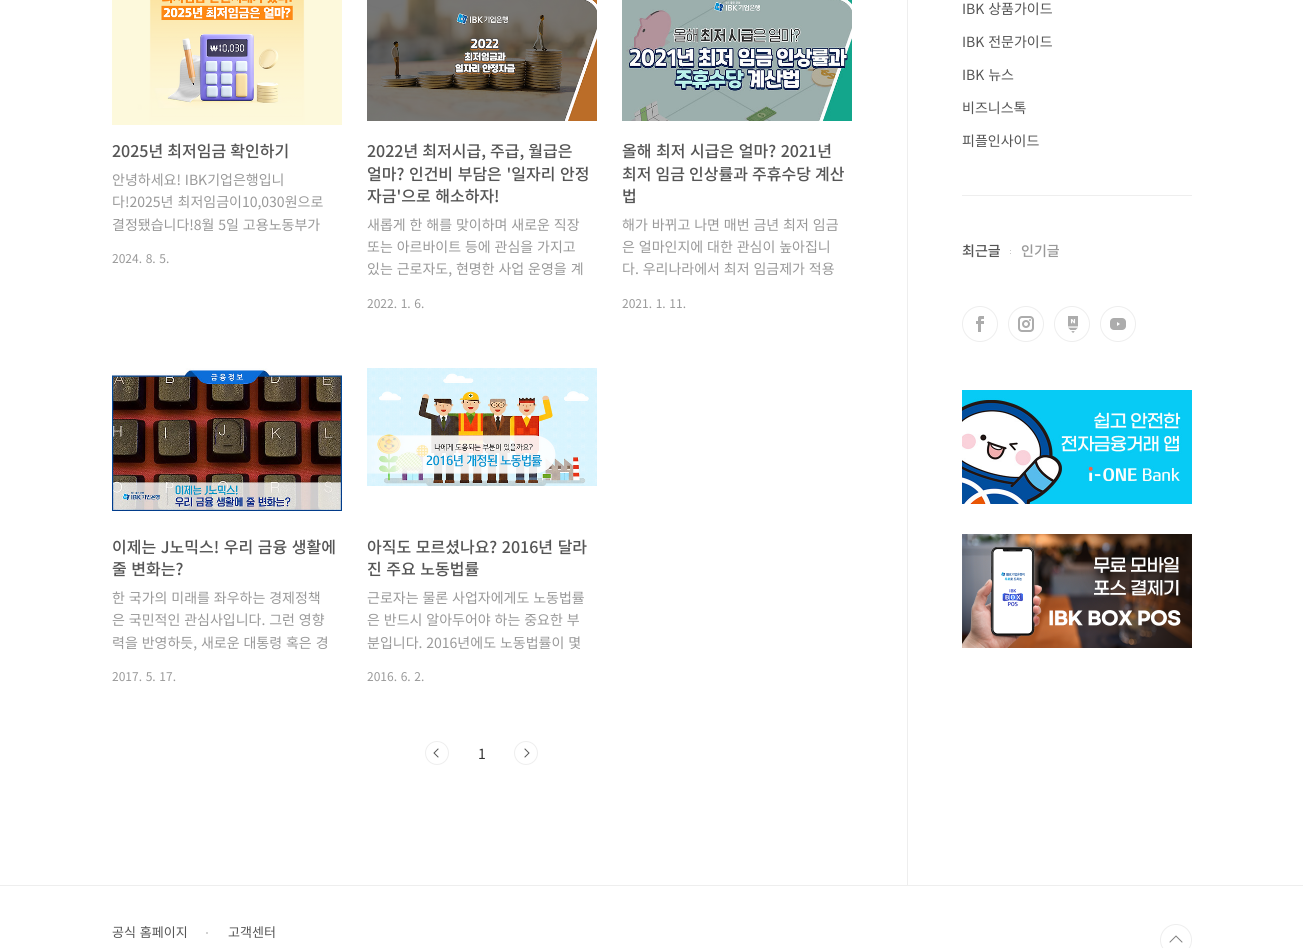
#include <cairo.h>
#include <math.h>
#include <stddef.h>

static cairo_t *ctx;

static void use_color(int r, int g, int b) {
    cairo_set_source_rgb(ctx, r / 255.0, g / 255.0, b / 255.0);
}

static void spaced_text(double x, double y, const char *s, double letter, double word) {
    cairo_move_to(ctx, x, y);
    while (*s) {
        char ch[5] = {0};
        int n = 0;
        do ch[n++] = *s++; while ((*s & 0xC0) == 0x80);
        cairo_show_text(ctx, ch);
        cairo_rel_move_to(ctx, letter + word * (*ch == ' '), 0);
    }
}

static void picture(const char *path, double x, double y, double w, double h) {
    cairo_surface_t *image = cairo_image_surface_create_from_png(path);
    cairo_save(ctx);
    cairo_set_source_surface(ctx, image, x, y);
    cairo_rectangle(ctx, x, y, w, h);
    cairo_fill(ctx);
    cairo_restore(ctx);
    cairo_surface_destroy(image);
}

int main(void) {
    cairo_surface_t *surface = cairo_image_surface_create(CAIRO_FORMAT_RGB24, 1303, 948);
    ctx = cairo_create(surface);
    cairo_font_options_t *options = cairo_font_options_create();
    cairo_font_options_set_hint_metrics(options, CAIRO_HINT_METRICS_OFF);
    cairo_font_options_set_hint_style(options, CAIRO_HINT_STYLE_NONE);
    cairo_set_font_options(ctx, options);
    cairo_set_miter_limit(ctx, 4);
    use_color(255, 255, 255);
    cairo_paint(ctx);
    picture("img1.png", 112, 0, 230, 125);
    cairo_select_font_face(ctx, "Noto Sans KR Medium", CAIRO_FONT_SLANT_NORMAL, CAIRO_FONT_WEIGHT_NORMAL);
    cairo_set_font_size(ctx, 16);
    use_color(85, 85, 85);
    spaced_text(112, 157, "2025년 최저임금 확인하기", 0, 0.5);
    cairo_select_font_face(ctx, "Noto Sans KR", CAIRO_FONT_SLANT_NORMAL, CAIRO_FONT_WEIGHT_NORMAL);
    cairo_set_font_size(ctx, 14);
    use_color(153, 153, 153);
    spaced_text(112, 185, "안녕하세요! IBK기업은행입니", 0, 0.75);
    spaced_text(112, 207, "다!2025년 최저임금이10,030원으로", 0, 1);
    spaced_text(112, 230, "결정됐습니다!8월 5일 고용노동부가", 0, 0.75);
    cairo_set_font_size(ctx, 12);
    spaced_text(112, 263, "2024. 8. 5.", 0, 1);
    picture("img2.png", 367, 0, 230, 121);
    cairo_select_font_face(ctx, "Noto Sans KR Medium", CAIRO_FONT_SLANT_NORMAL, CAIRO_FONT_WEIGHT_NORMAL);
    cairo_set_font_size(ctx, 16);
    use_color(85, 85, 85);
    spaced_text(367, 157, "2022년 최저시급, 주급, 월급은", 0, 0.5);
    spaced_text(367, 180, "얼마? 인건비 부담은 '일자리 안정", 0, 1);
    spaced_text(367, 202, "자금'으로 해소하자!", 0, 1);
    cairo_select_font_face(ctx, "Noto Sans KR", CAIRO_FONT_SLANT_NORMAL, CAIRO_FONT_WEIGHT_NORMAL);
    cairo_set_font_size(ctx, 14);
    use_color(153, 153, 153);
    spaced_text(367, 230, "새롭게 한 해를 맞이하며 새로운 직장", 0, 0.75);
    spaced_text(367, 252, "또는 아르바이트 등에 관심을 가지고", 0, 0.75);
    spaced_text(367, 274, "있는 근로자도, 현명한 사업 운영을 계", 0, 0.75);
    cairo_set_font_size(ctx, 12);
    spaced_text(367, 308, "2022. 1. 6.", 0, 1);
    picture("img3.png", 622, 0, 230, 121);
    cairo_select_font_face(ctx, "Noto Sans KR Medium", CAIRO_FONT_SLANT_NORMAL, CAIRO_FONT_WEIGHT_NORMAL);
    cairo_set_font_size(ctx, 16);
    use_color(85, 85, 85);
    spaced_text(622, 157, "올해 최저 시급은 얼마? 2021년", 0, 1);
    spaced_text(622, 180, "최저 임금 인상률과 주휴수당 계산", 0, 0.5);
    cairo_move_to(ctx, 622, 202);
    cairo_show_text(ctx, "법");
    cairo_select_font_face(ctx, "Noto Sans KR", CAIRO_FONT_SLANT_NORMAL, CAIRO_FONT_WEIGHT_NORMAL);
    cairo_set_font_size(ctx, 14);
    use_color(153, 153, 153);
    spaced_text(622, 230, "해가 바뀌고 나면 매번 금년 최저 임금", 0, 0.75);
    spaced_text(622, 252, "은 얼마인지에 대한 관심이 높아집니", 0, 0.75);
    spaced_text(622, 274, "다. 우리나라에서 최저 임금제가 적용", 0, 0.75);
    cairo_set_font_size(ctx, 12);
    spaced_text(622, 308, "2021. 1. 11.", 0, 1);
    picture("img4.png", 112, 368, 230, 143);
    cairo_select_font_face(ctx, "Noto Sans KR Medium", CAIRO_FONT_SLANT_NORMAL, CAIRO_FONT_WEIGHT_NORMAL);
    cairo_set_font_size(ctx, 16);
    use_color(85, 85, 85);
    spaced_text(112, 553, "이제는 J노믹스! 우리 금융 생활에", 0, 1);
    spaced_text(112, 575, "줄 변화는?", 0, 1);
    cairo_select_font_face(ctx, "Noto Sans KR", CAIRO_FONT_SLANT_NORMAL, CAIRO_FONT_WEIGHT_NORMAL);
    cairo_set_font_size(ctx, 14);
    use_color(153, 153, 153);
    spaced_text(112, 603, "한 국가의 미래를 좌우하는 경제정책", 0, 0.75);
    spaced_text(112, 625, "은 국민적인 관심사입니다. 그런 영향", 0, 0.75);
    spaced_text(112, 648, "력을 반영하듯, 새로운 대통령 혹은 경", 0, 0.75);
    cairo_set_font_size(ctx, 12);
    spaced_text(112, 681, "2017. 5. 17.", 0, 1);
    picture("img5.png", 367, 368, 230, 118);
    cairo_select_font_face(ctx, "Noto Sans KR Medium", CAIRO_FONT_SLANT_NORMAL, CAIRO_FONT_WEIGHT_NORMAL);
    cairo_set_font_size(ctx, 16);
    use_color(85, 85, 85);
    spaced_text(367, 553, "아직도 모르셨나요? 2016년 달라", 0, 1);
    spaced_text(367, 575, "진 주요 노동법률", 0, 1);
    cairo_select_font_face(ctx, "Noto Sans KR", CAIRO_FONT_SLANT_NORMAL, CAIRO_FONT_WEIGHT_NORMAL);
    cairo_set_font_size(ctx, 14);
    use_color(153, 153, 153);
    spaced_text(367, 603, "근로자는 물론 사업자에게도 노동법률", 0, 0.75);
    spaced_text(367, 625, "은 반드시 알아두어야 하는 중요한 부", 0, 0.75);
    spaced_text(367, 648, "분입니다. 2016년에도 노동법률이 몇", 0, 0.75);
    cairo_set_font_size(ctx, 12);
    spaced_text(367, 681, "2016. 6. 2.", 0, 1);
    picture("img6.png", 433, 748, 6, 10);
    cairo_arc(ctx, 437, 753, 11.5, 0, 2 * M_PI);
    use_color(238, 238, 238);
    cairo_set_line_width(ctx, 1);
    cairo_stroke(ctx);
    cairo_set_font_size(ctx, 14);
    use_color(51, 51, 51);
    cairo_move_to(ctx, 478, 759);
    cairo_show_text(ctx, "1");
    picture("img7.png", 524, 748, 6, 10);
    cairo_arc(ctx, 526, 753, 11.5, 0, 2 * M_PI);
    use_color(238, 238, 238);
    cairo_stroke(ctx);
    cairo_rectangle(ctx, 907, 0, 1, 885);
    cairo_fill(ctx);
    use_color(85, 85, 85);
    spaced_text(962, 14, "IBK 상품가이드", 0, 0.75);
    spaced_text(962, 47, "IBK 전문가이드", 0, 0.75);
    spaced_text(962, 80, "IBK 뉴스", 0, 0.75);
    cairo_move_to(ctx, 962, 113);
    cairo_show_text(ctx, "비즈니스톡");
    cairo_move_to(ctx, 962, 146);
    cairo_show_text(ctx, "피플인사이드");
    use_color(238, 238, 238);
    cairo_rectangle(ctx, 962, 195, 230, 1);
    cairo_fill(ctx);
    cairo_select_font_face(ctx, "Noto Sans KR Medium", CAIRO_FONT_SLANT_NORMAL, CAIRO_FONT_WEIGHT_NORMAL);
    use_color(85, 85, 85);
    cairo_move_to(ctx, 962, 256);
    cairo_show_text(ctx, "최근글");
    picture("img8.png", 1010, 250, 1, 4);
    use_color(153, 153, 153);
    cairo_move_to(ctx, 1021, 256);
    cairo_show_text(ctx, "인기글");
    picture("img9.png", 976, 316, 8, 16);
    cairo_arc(ctx, 980, 324, 17.5, 0, 2 * M_PI);
    use_color(238, 238, 238);
    cairo_stroke(ctx);
    picture("img10.png", 1018, 316, 16, 16);
    cairo_arc(ctx, 1026, 324, 17.5, 0, 2 * M_PI);
    cairo_stroke(ctx);
    picture("img11.png", 1068, 316, 10, 17);
    cairo_arc(ctx, 1072, 324, 17.5, 0, 2 * M_PI);
    cairo_stroke(ctx);
    picture("img12.png", 1110, 318, 16, 12);
    cairo_arc(ctx, 1118, 324, 17.5, 0, 2 * M_PI);
    cairo_stroke(ctx);
    picture("img13.png", 962, 390, 230, 114);
    picture("img14.png", 962, 534, 230, 114);
    cairo_rectangle(ctx, 0, 885, 1303, 1);
    cairo_fill(ctx);
    cairo_select_font_face(ctx, "Noto Sans KR", CAIRO_FONT_SLANT_NORMAL, CAIRO_FONT_WEIGHT_NORMAL);
    cairo_set_font_size(ctx, 13);
    use_color(85, 85, 85);
    spaced_text(112, 937, "공식 홈페이지", 0, 1);
    use_color(210, 210, 210);
    cairo_rectangle(ctx, 206, 932, 2, 2);
    cairo_fill(ctx);
    use_color(85, 85, 85);
    cairo_move_to(ctx, 228, 937);
    cairo_show_text(ctx, "고객센터");
    picture("img15.png", 1169, 935, 14, 8);
    cairo_arc(ctx, 1176, 940, 15.5, 0, 2 * M_PI);
    use_color(238, 238, 238);
    cairo_stroke(ctx);
    cairo_surface_write_to_png(surface, "result.png");
    cairo_font_options_destroy(options);
    cairo_destroy(ctx);
    cairo_surface_destroy(surface);
    return 0;
}
